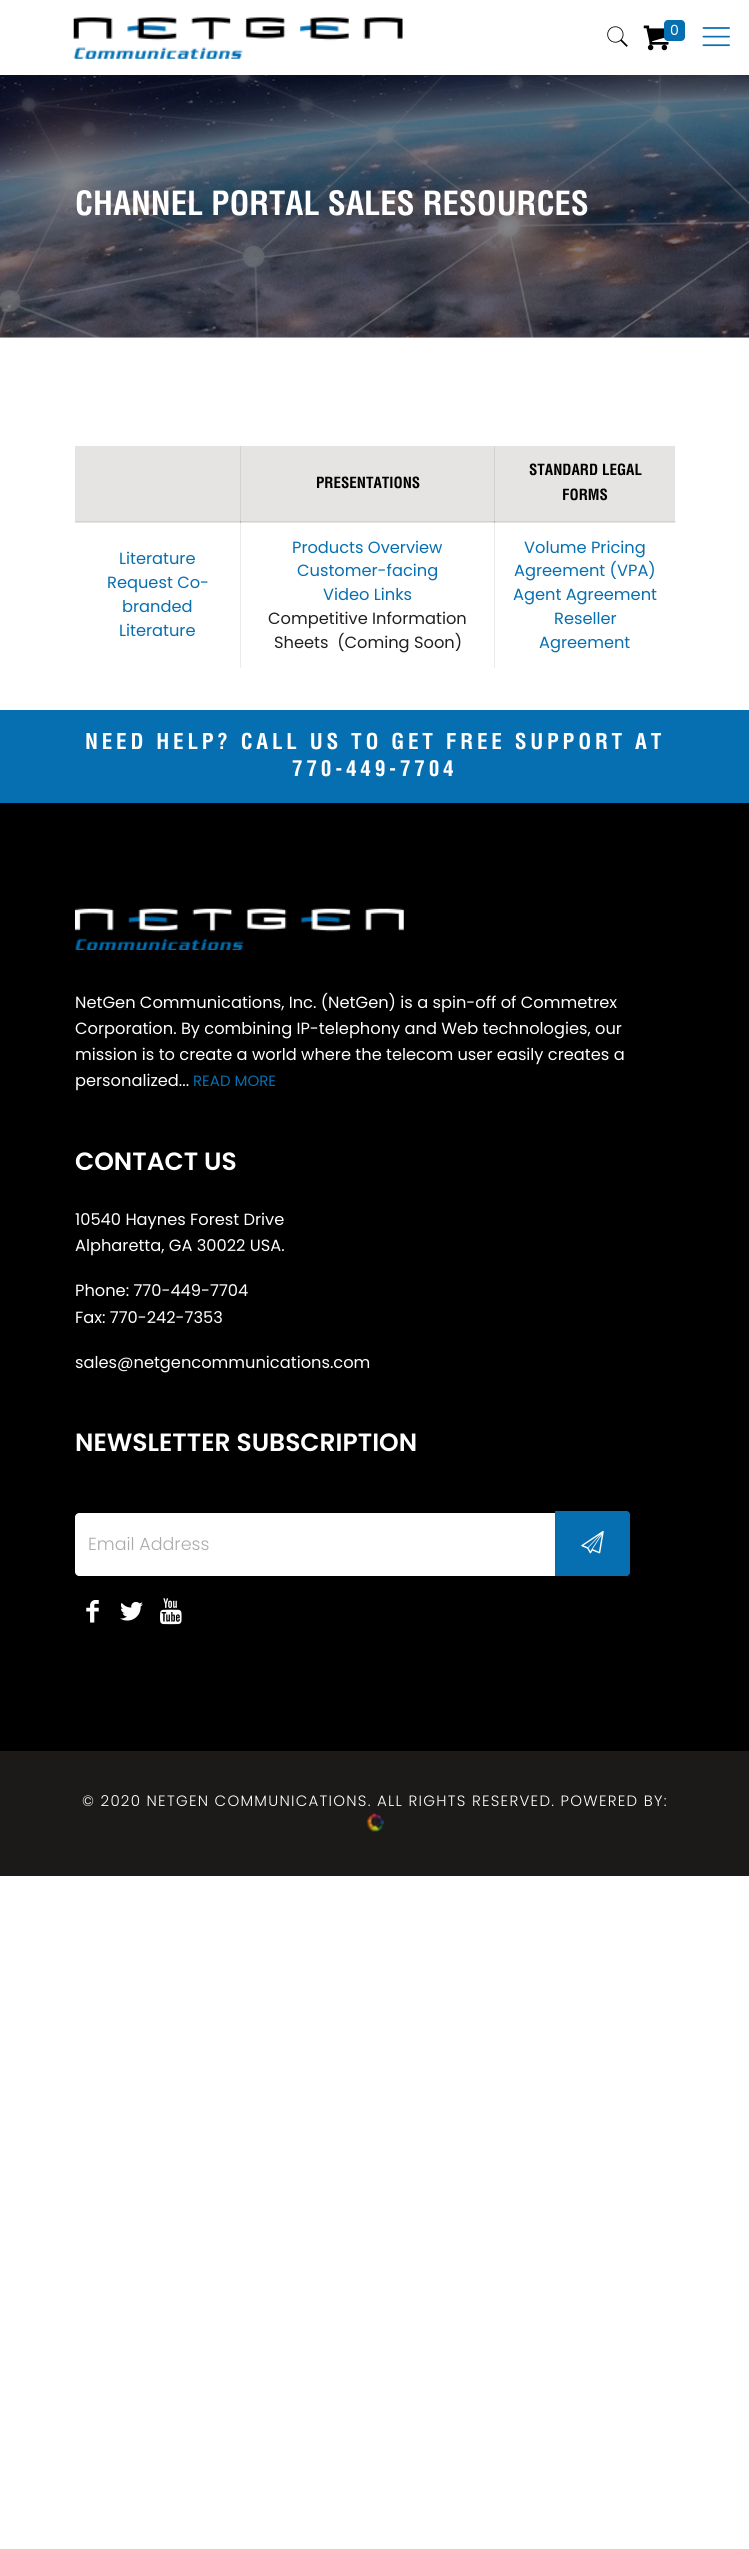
#include <cairo.h>
#include <math.h>
#include <stddef.h>

static cairo_t *ctx;

static void use_color(int r, int g, int b) {
    cairo_set_source_rgb(ctx, r / 255.0, g / 255.0, b / 255.0);
}

static void spaced_text(double x, double y, const char *s, double letter, double word) {
    cairo_move_to(ctx, x, y);
    while (*s) {
        char ch[5] = {0};
        int n = 0;
        do ch[n++] = *s++; while ((*s & 0xC0) == 0x80);
        cairo_show_text(ctx, ch);
        cairo_rel_move_to(ctx, letter + word * (*ch == ' '), 0);
    }
}

static void round_rect(double x, double y, double w, double h, double r) {
    cairo_new_sub_path(ctx);
    cairo_arc(ctx, x + w - r, y + h - r, r, 0, M_PI / 2);
    cairo_arc(ctx, x + r, y + h - r, r, M_PI / 2, M_PI);
    cairo_arc(ctx, x + r, y + r, r, M_PI, 1.5 * M_PI);
    cairo_arc(ctx, x + w - r, y + r, r, 1.5 * M_PI, 2 * M_PI);
    cairo_close_path(ctx);
}

static void picture(const char *path, double x, double y, double w, double h) {
    cairo_surface_t *image = cairo_image_surface_create_from_png(path);
    cairo_save(ctx);
    cairo_set_source_surface(ctx, image, x, y);
    cairo_rectangle(ctx, x, y, w, h);
    cairo_fill(ctx);
    cairo_restore(ctx);
    cairo_surface_destroy(image);
}

int main(void) {
    cairo_surface_t *surface = cairo_image_surface_create(CAIRO_FORMAT_RGB24, 749, 2549);
    ctx = cairo_create(surface);
    cairo_font_options_t *options = cairo_font_options_create();
    cairo_font_options_set_hint_metrics(options, CAIRO_HINT_METRICS_OFF);
    cairo_font_options_set_hint_style(options, CAIRO_HINT_STYLE_NONE);
    cairo_set_font_options(ctx, options);
    cairo_set_miter_limit(ctx, 4);
    use_color(255, 255, 255);
    cairo_paint(ctx);
    use_color(235, 235, 235);
    cairo_rectangle(ctx, 675, 521, 1, 1);
    cairo_fill(ctx);
    cairo_rectangle(ctx, 240, 521, 1, 147);
    cairo_fill(ctx);
    cairo_rectangle(ctx, 494, 521, 1, 147);
    cairo_fill(ctx);
    picture("img1.png", 73, 17, 330, 42);
    picture("img2.png", 702, 27, 28, 20);
    picture("img3.png", 607, 26, 21, 21);
    picture("img4.png", 643, 25, 26, 26);
    use_color(6, 111, 177);
    round_rect(664, 20, 21, 21, 4);
    cairo_fill(ctx);
    cairo_select_font_face(ctx, "Poppins", CAIRO_FONT_SLANT_NORMAL, CAIRO_FONT_WEIGHT_NORMAL);
    cairo_set_font_size(ctx, 14);
    use_color(255, 255, 255);
    cairo_move_to(ctx, 670, 35);
    cairo_show_text(ctx, "0");
    use_color(239, 241, 246);
    cairo_rectangle(ctx, 0, 337, 749, 1);
    cairo_fill(ctx);
    picture("img5.png", 0, 75, 749, 263);
    cairo_select_font_face(ctx, "Helvetica", CAIRO_FONT_SLANT_NORMAL, CAIRO_FONT_WEIGHT_BOLD);
    cairo_set_font_size(ctx, 32.5);
    use_color(255, 255, 255);
    cairo_move_to(ctx, 75, 215);
    cairo_show_text(ctx, "CHANNEL PORTAL SALES RESOURCES");
    use_color(229, 228, 226);
    cairo_rectangle(ctx, 75, 446, 600, 77);
    cairo_fill(ctx);
    use_color(211, 210, 208);
    cairo_rectangle(ctx, 75, 521, 166, 1);
    cairo_fill(ctx);
    cairo_rectangle(ctx, 240, 446, 1, 77);
    cairo_fill(ctx);
    cairo_rectangle(ctx, 240, 521, 255, 1);
    cairo_fill(ctx);
    cairo_rectangle(ctx, 494, 446, 1, 77);
    cairo_fill(ctx);
    cairo_rectangle(ctx, 494, 521, 181, 1);
    cairo_fill(ctx);
    use_color(194, 193, 191);
    cairo_rectangle(ctx, 240, 521, 1, 2);
    cairo_fill(ctx);
    use_color(164, 164, 162);
    cairo_rectangle(ctx, 240, 521, 1, 1);
    cairo_fill(ctx);
    use_color(194, 193, 191);
    cairo_rectangle(ctx, 494, 521, 1, 2);
    cairo_fill(ctx);
    use_color(164, 164, 162);
    cairo_rectangle(ctx, 494, 521, 1, 1);
    cairo_fill(ctx);
    cairo_set_font_size(ctx, 15);
    use_color(0, 0, 0);
    cairo_move_to(ctx, 316, 488);
    cairo_show_text(ctx, "PRESENTATIONS");
    cairo_move_to(ctx, 529, 475);
    cairo_show_text(ctx, "STANDARD LEGAL");
    cairo_move_to(ctx, 562, 500);
    cairo_show_text(ctx, "FORMS");
    cairo_select_font_face(ctx, "Poppins", CAIRO_FONT_SLANT_NORMAL, CAIRO_FONT_WEIGHT_NORMAL);
    cairo_set_font_size(ctx, 16.25);
    use_color(6, 111, 177);
    cairo_move_to(ctx, 119, 564);
    cairo_show_text(ctx, "Literature");
    cairo_move_to(ctx, 107, 588);
    cairo_show_text(ctx, "Request Co-");
    cairo_move_to(ctx, 122, 612);
    cairo_show_text(ctx, "branded");
    cairo_move_to(ctx, 119, 636);
    cairo_show_text(ctx, "Literature");
    cairo_move_to(ctx, 292, 553);
    cairo_show_text(ctx, "Products Overview");
    cairo_move_to(ctx, 297, 576);
    cairo_show_text(ctx, "Customer-facing");
    cairo_move_to(ctx, 323, 600);
    cairo_show_text(ctx, "Video Links");
    use_color(35, 31, 32);
    cairo_move_to(ctx, 268, 624);
    cairo_show_text(ctx, "Competitive Information");
    cairo_move_to(ctx, 274, 648);
    cairo_show_text(ctx, "Sheets  (Coming Soon)");
    use_color(6, 111, 177);
    cairo_move_to(ctx, 524, 553);
    cairo_show_text(ctx, "Volume Pricing");
    cairo_move_to(ctx, 514, 576);
    cairo_show_text(ctx, "Agreement (VPA)");
    cairo_move_to(ctx, 513, 600);
    cairo_show_text(ctx, "Agent Agreement");
    cairo_move_to(ctx, 554, 624);
    cairo_show_text(ctx, "Reseller");
    cairo_move_to(ctx, 539, 648);
    cairo_show_text(ctx, "Agreement");
    cairo_rectangle(ctx, 0, 710, 749, 93);
    cairo_fill(ctx);
    cairo_select_font_face(ctx, "Helvetica", CAIRO_FONT_SLANT_NORMAL, CAIRO_FONT_WEIGHT_BOLD);
    cairo_set_font_size(ctx, 21.25);
    use_color(255, 255, 255);
    spaced_text(85, 749, "NEED HELP? CALL US TO GET FREE SUPPORT AT", 3.75, 0);
    spaced_text(292, 776, "770-449-7704", 3.75, 0);
    use_color(0, 0, 0);
    cairo_rectangle(ctx, 0, 803, 749, 948);
    cairo_fill(ctx);
    picture("img6.png", 75, 908, 329, 42);
    cairo_select_font_face(ctx, "Poppins", CAIRO_FONT_SLANT_NORMAL, CAIRO_FONT_WEIGHT_NORMAL);
    cairo_set_font_size(ctx, 16.25);
    use_color(255, 255, 255);
    cairo_move_to(ctx, 75, 1008);
    cairo_show_text(ctx, "NetGen Communications, Inc. (NetGen) is a spin-off of Commetrex");
    cairo_move_to(ctx, 75, 1034);
    cairo_show_text(ctx, "Corporation. By combining IP-telephony and Web technologies, our");
    cairo_move_to(ctx, 75, 1060);
    cairo_show_text(ctx, "mission is to create a world where the telecom user easily creates a");
    cairo_move_to(ctx, 75, 1086);
    cairo_show_text(ctx, "personalized...");
    cairo_set_font_size(ctx, 15);
    use_color(6, 111, 177);
    cairo_move_to(ctx, 193, 1086);
    cairo_show_text(ctx, "READ MORE");
    cairo_select_font_face(ctx, "Poppins SemiBold", CAIRO_FONT_SLANT_NORMAL, CAIRO_FONT_WEIGHT_NORMAL);
    cairo_set_font_size(ctx, 25);
    use_color(255, 255, 255);
    cairo_move_to(ctx, 75, 1170);
    cairo_show_text(ctx, "CONTACT US");
    cairo_select_font_face(ctx, "Poppins", CAIRO_FONT_SLANT_NORMAL, CAIRO_FONT_WEIGHT_NORMAL);
    cairo_set_font_size(ctx, 16.25);
    cairo_move_to(ctx, 75, 1225);
    cairo_show_text(ctx, "10540 Haynes Forest Drive");
    cairo_move_to(ctx, 75, 1251);
    cairo_show_text(ctx, "Alpharetta, GA 30022 USA.");
    cairo_move_to(ctx, 75, 1296);
    cairo_show_text(ctx, "Phone: 770-449-7704");
    cairo_move_to(ctx, 75, 1323);
    cairo_show_text(ctx, "Fax: 770-242-7353");
    cairo_move_to(ctx, 75, 1368);
    cairo_show_text(ctx, "sales@netgencommunications.com");
    cairo_select_font_face(ctx, "Poppins SemiBold", CAIRO_FONT_SLANT_NORMAL, CAIRO_FONT_WEIGHT_NORMAL);
    cairo_set_font_size(ctx, 25);
    cairo_move_to(ctx, 75, 1451);
    cairo_show_text(ctx, "NEWSLETTER SUBSCRIPTION");
    cairo_new_path(ctx);
    cairo_move_to(ctx, 79, 1513);
    cairo_line_to(ctx, 555, 1513);
    cairo_line_to(ctx, 555, 1576);
    cairo_line_to(ctx, 79, 1576);
    cairo_curve_to(ctx, 77, 1576, 75, 1574, 75, 1572);
    cairo_line_to(ctx, 75, 1517);
    cairo_curve_to(ctx, 75, 1515, 77, 1513, 79, 1513);
    cairo_close_path(ctx);
    cairo_fill(ctx);
    cairo_select_font_face(ctx, "Poppins Light", CAIRO_FONT_SLANT_NORMAL, CAIRO_FONT_WEIGHT_NORMAL);
    cairo_set_font_size(ctx, 17.5);
    use_color(171, 171, 171);
    cairo_move_to(ctx, 88, 1550);
    cairo_show_text(ctx, "Email Address");
    use_color(6, 111, 177);
    cairo_new_path(ctx);
    cairo_move_to(ctx, 555, 1511);
    cairo_line_to(ctx, 626, 1511);
    cairo_curve_to(ctx, 628, 1511, 630, 1513, 630, 1515);
    cairo_line_to(ctx, 630, 1572);
    cairo_curve_to(ctx, 630, 1574, 628, 1576, 626, 1576);
    cairo_line_to(ctx, 555, 1576);
    cairo_close_path(ctx);
    cairo_fill(ctx);
    cairo_new_path(ctx);
    cairo_move_to(ctx, 556.5, 1513.5);
    cairo_line_to(ctx, 626.5, 1513.5);
    cairo_curve_to(ctx, 627.5, 1513.5, 628.5, 1514.5, 628.5, 1515.5);
    cairo_line_to(ctx, 628.5, 1572.5);
    cairo_curve_to(ctx, 628.5, 1573.5, 627.5, 1574.5, 626.5, 1574.5);
    cairo_line_to(ctx, 556.5, 1574.5);
    cairo_close_path(ctx);
    use_color(6, 108, 172);
    cairo_set_line_width(ctx, 1);
    cairo_stroke(ctx);
    cairo_new_path(ctx);
    cairo_move_to(ctx, 555.5, 1511.5);
    cairo_line_to(ctx, 626, 1511.5);
    cairo_curve_to(ctx, 628, 1511.5, 629.5, 1513, 629.5, 1515);
    cairo_line_to(ctx, 629.5, 1572);
    cairo_curve_to(ctx, 629.5, 1574, 628, 1575.5, 626, 1575.5);
    cairo_line_to(ctx, 555.5, 1575.5);
    cairo_close_path(ctx);
    use_color(6, 111, 177);
    cairo_stroke(ctx);
    picture("img7.png", 581, 1530, 23, 24);
    picture("img8.png", 86, 1600, 13, 23);
    picture("img9.png", 120, 1601, 23, 20);
    picture("img10.png", 160, 1598, 22, 27);
    use_color(28, 25, 25);
    cairo_rectangle(ctx, 0, 1751, 749, 125);
    cairo_fill(ctx);
    cairo_set_font_size(ctx, 15);
    use_color(255, 255, 255);
    spaced_text(82, 1806, "© 2020 NETGEN COMMUNICATIONS. ALL RIGHTS RESERVED. POWERED BY:", 1.25, 0);
    picture("img11.png", 366, 1813, 18, 19);
    cairo_surface_write_to_png(surface, "result.png");
    cairo_font_options_destroy(options);
    cairo_destroy(ctx);
    cairo_surface_destroy(surface);
    return 0;
}
